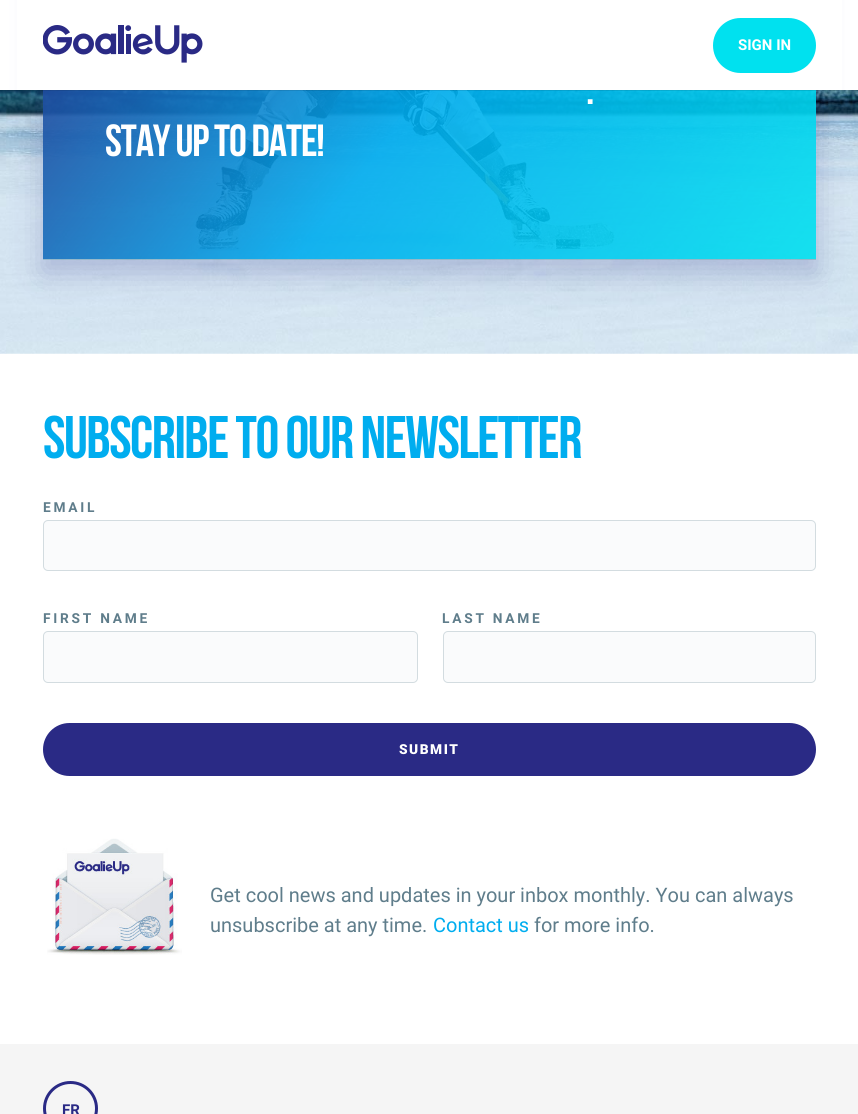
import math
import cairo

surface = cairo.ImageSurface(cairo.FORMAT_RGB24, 858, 1114)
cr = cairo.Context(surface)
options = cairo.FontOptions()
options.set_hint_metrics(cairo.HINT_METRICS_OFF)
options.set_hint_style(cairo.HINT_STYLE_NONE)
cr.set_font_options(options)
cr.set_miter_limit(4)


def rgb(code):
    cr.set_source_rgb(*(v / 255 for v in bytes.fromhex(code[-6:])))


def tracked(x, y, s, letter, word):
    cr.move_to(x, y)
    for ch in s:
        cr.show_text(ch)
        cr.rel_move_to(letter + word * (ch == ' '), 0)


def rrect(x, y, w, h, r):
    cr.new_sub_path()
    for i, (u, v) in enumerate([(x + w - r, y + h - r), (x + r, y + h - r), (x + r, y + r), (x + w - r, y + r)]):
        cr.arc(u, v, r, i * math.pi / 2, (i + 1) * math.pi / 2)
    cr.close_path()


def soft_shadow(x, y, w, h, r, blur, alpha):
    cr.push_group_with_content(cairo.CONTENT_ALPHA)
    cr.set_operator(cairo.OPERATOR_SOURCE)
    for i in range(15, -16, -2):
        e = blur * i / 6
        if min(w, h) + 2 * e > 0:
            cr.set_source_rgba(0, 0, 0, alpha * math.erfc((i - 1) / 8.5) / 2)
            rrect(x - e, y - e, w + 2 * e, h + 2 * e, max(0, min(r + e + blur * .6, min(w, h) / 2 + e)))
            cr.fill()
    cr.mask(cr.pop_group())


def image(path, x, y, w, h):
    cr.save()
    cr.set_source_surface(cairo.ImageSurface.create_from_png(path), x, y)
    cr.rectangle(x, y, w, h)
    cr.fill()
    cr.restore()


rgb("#ffffff")
cr.paint()
image("img/2.png", 0, 90, 858, 264)
cr.save()
cr.set_fill_rule(cairo.FILL_RULE_EVEN_ODD)
cr.new_path()
cr.move_to(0, 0)
cr.line_to(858, 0)
cr.line_to(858, 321)
cr.line_to(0, 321)
cr.close_path()
cr.move_to(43, -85)
cr.line_to(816, -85)
cr.line_to(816, 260)
cr.line_to(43, 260)
cr.close_path()
cr.clip()
rgb("#2a2a85")
soft_shadow(43, -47, 773, 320, 0, 15.5, 0.25)
cr.restore()
cr.rectangle(-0.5, -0.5, 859, 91)
cr.set_source_rgba(0, 0, 0, 0.1)
cr.set_line_width(1)
cr.stroke()
rgb("#ffffff")
cr.rectangle(17, 0, 825, 90)
cr.fill()
image("img/1.png", 43, 25, 160, 38)
rgb("#00e1ef")
rrect(713, 18, 103, 55, 27.5)
cr.fill()
cr.set_source_rgba(0, 0.318, 0.439, 0.3)
cr.rectangle(43, 259, 773, 1)
cr.fill()
rgb("#fafbfc")
rrect(43.5, 520.5, 772, 50, 4.5)
cr.fill_preserve()
rgb("#d3dce0")
cr.stroke()
rgb("#fafbfc")
rrect(43.5, 631.5, 374, 51, 4.5)
cr.fill_preserve()
rgb("#d3dce0")
cr.stroke()
rgb("#fafbfc")
rrect(443.5, 631.5, 372, 51, 4.5)
cr.fill_preserve()
rgb("#d3dce0")
cr.stroke()
rgb("#2a2a85")
rrect(43, 723, 773, 53, 26.5)
cr.fill()
image("img/3.png", 47, 838, 135, 117)
rgb("#f5f5f5")
cr.rectangle(0, 1044, 858, 70)
cr.fill()
cr.arc(70.5, 1108.5, 26, 0, 2 * math.pi)
rgb("#2a2a85")
cr.set_line_width(3)
cr.stroke()
cr.select_font_face("Roboto", cairo.FONT_SLANT_NORMAL, cairo.FONT_WEIGHT_BOLD)
cr.set_font_size(15)
rgb("#ffffff")
cr.move_to(738, 50)
cr.show_text("SIGN IN")
cr.select_font_face("Bebas Neue", cairo.FONT_SLANT_NORMAL, cairo.FONT_WEIGHT_BOLD)
cr.set_font_size(45)
tracked(586, 104, ".", -1.1, 0)
tracked(105, 156, "Stay up to date!", -1.1, 0)
cr.set_font_size(60)
rgb("#00adef")
tracked(43, 458, "Subscribe to our newsletter", -1.5, 0)
cr.select_font_face("Roboto", cairo.FONT_SLANT_NORMAL, cairo.FONT_WEIGHT_BOLD)
cr.set_font_size(13.75)
rgb("#5f7d8b")
for x, y, s in [
    (43, 512, "EMAIL"),
    (43, 623, "FIRST NAME"),
    (442, 623, "LAST NAME"),
]:
    tracked(x, y, s, 2.75, 0)
cr.select_font_face("Roboto Black")
rgb("#ffffff")
tracked(399, 754, "SUBMIT", 1.5, 0)
cr.select_font_face("Roboto")
cr.set_font_size(20)
rgb("#5f7d8b")
cr.move_to(210, 902)
cr.show_text("Get cool news and updates in your inbox monthly. You can always")
cr.move_to(210, 932)
cr.show_text("unsubscribe at any time.")
rgb("#00adef")
cr.move_to(433, 932)
cr.show_text("Contact us")
rgb("#5f7d8b")
cr.move_to(534, 932)
cr.show_text("for more info.")
cr.select_font_face("Roboto", cairo.FONT_SLANT_NORMAL, cairo.FONT_WEIGHT_BOLD)
cr.set_font_size(15)
rgb("#2a2a85")
cr.move_to(62, 1115)
cr.show_text("FR")
surface.write_to_png("page.png")
